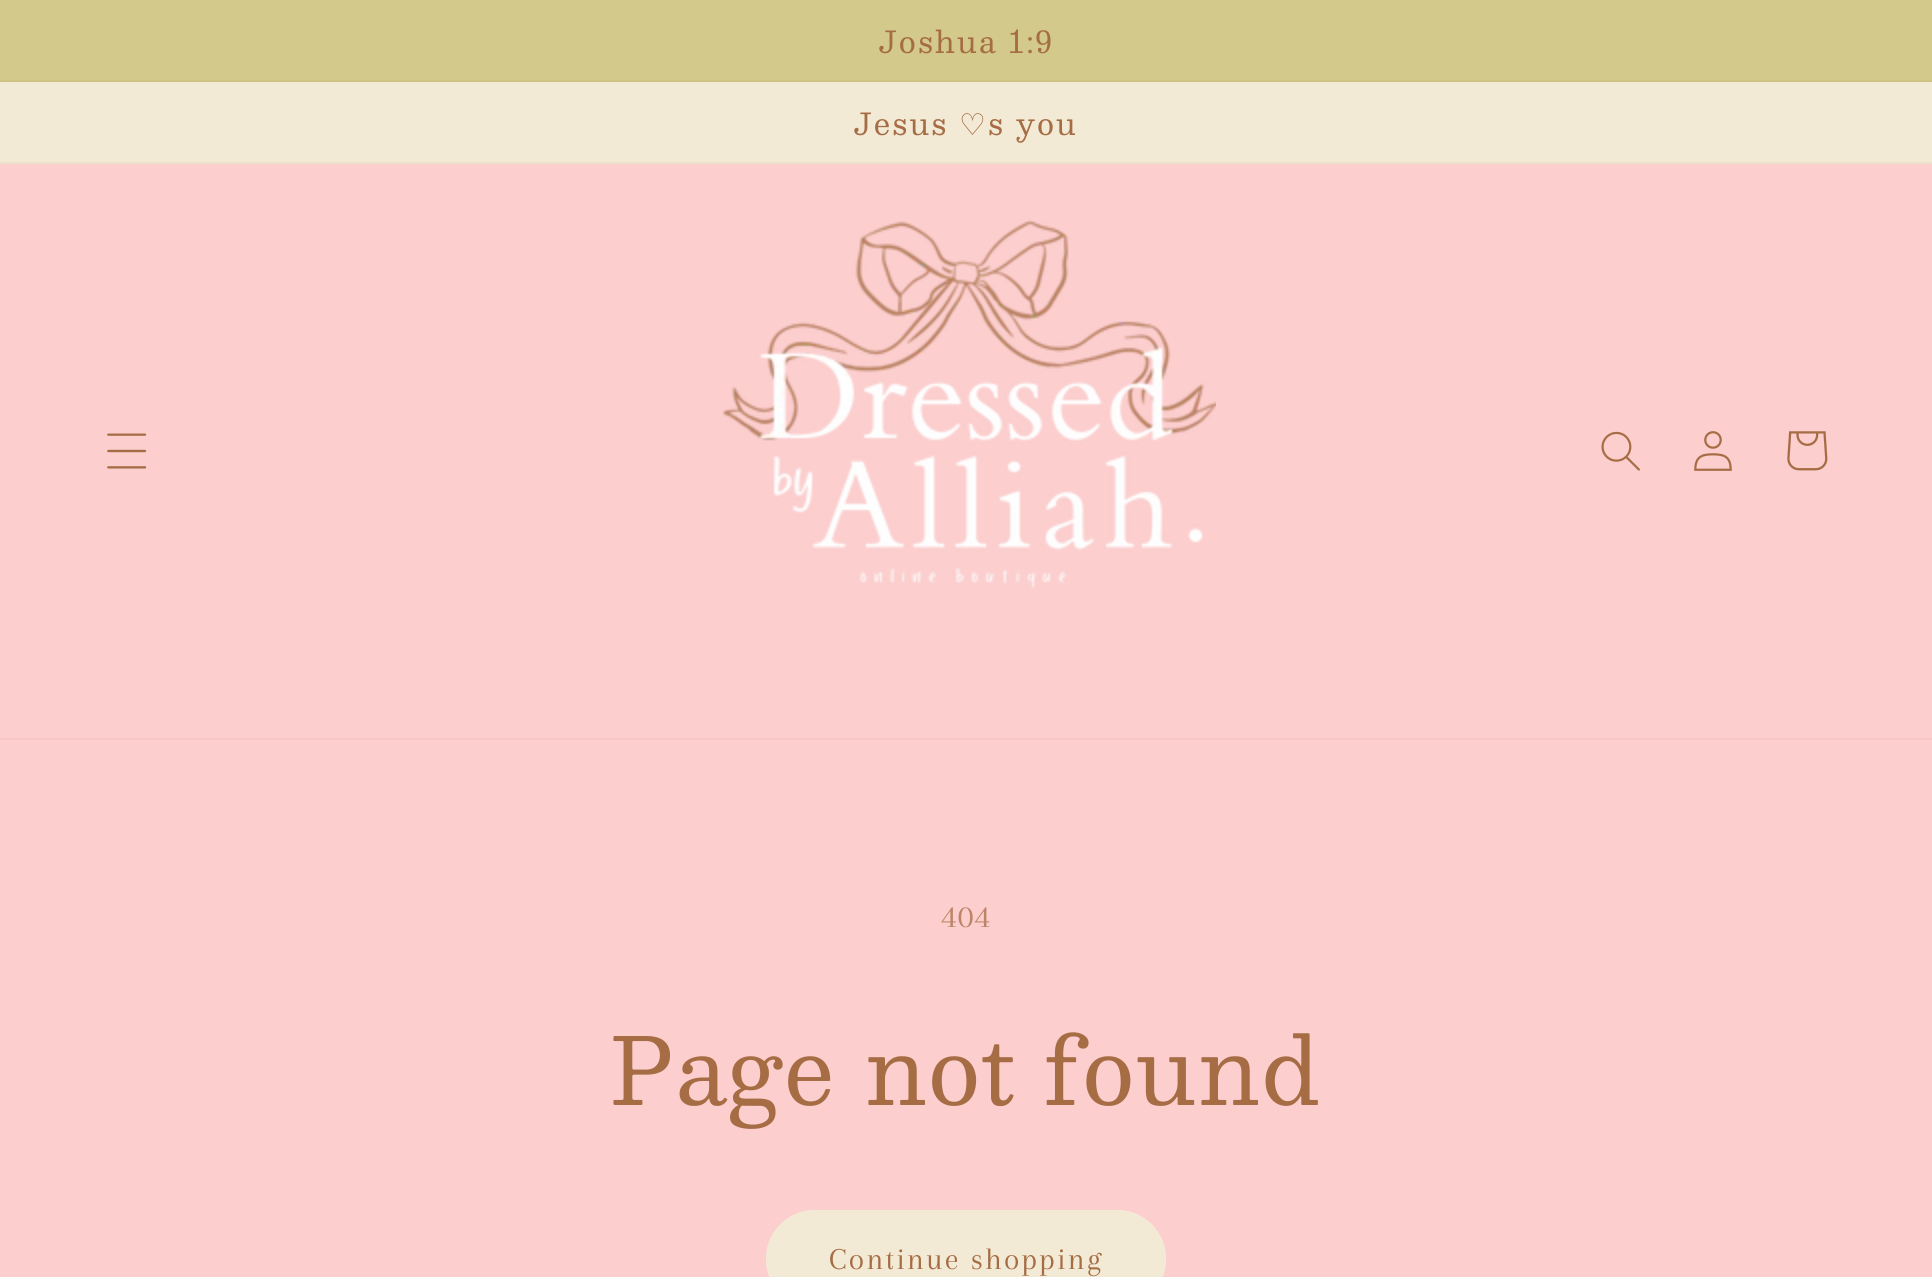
import math
import cairo

surface = cairo.ImageSurface(cairo.FORMAT_RGB24, 1932, 1277)
cr = cairo.Context(surface)
options = cairo.FontOptions()
options.set_hint_metrics(cairo.HINT_METRICS_OFF)
options.set_hint_style(cairo.HINT_STYLE_NONE)
cr.set_font_options(options)
cr.set_miter_limit(4)


def rgb(code):
    cr.set_source_rgb(*(v / 255 for v in bytes.fromhex(code[-6:])))


def tracked(x, y, s, letter, word):
    cr.move_to(x, y)
    for ch in s:
        cr.show_text(ch)
        cr.rel_move_to(letter + word * (ch == ' '), 0)


def rrect(x, y, w, h, r):
    cr.new_sub_path()
    for i, (u, v) in enumerate([(x + w - r, y + h - r), (x + r, y + h - r), (x + r, y + r), (x + w - r, y + r)]):
        cr.arc(u, v, r, i * math.pi / 2, (i + 1) * math.pi / 2)
    cr.close_path()


def image(path, x, y, w, h):
    cr.save()
    cr.set_source_surface(cairo.ImageSurface.create_from_png(path), x, y)
    cr.rectangle(x, y, w, h)
    cr.fill()
    cr.restore()


rgb("#fccece")
cr.paint()
for x, y, w, h, color in [
    (0, 0, 1932, 80, "#d2c98a"),
    (0, 80, 1932, 2, "#cec284"),
    (0, 82, 1932, 80, "#f3ead6"),
    (0, 162, 1932, 2, "#ede0ca"),
    (0, 738, 1932, 2, "#f5c6c3"),
]:
    rgb(color)
    cr.rectangle(x, y, w, h)
    cr.fill()
image("img/1.png", 107, 433, 40, 36)
image("img/2.png", 722, 219, 494, 369)
image("img/3.png", 1601, 431, 39, 40)
image("img/4.png", 1694, 431, 38, 40)
image("img/5.png", 1787, 431, 41, 40)
rgb("#f3ead6")
rrect(766, 1210, 400, 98, 49)
cr.fill()
rrect(767, 1211, 398, 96, 48)
cr.stroke()
cr.select_font_face("Besley")
cr.set_font_size(30)
rgb("#a66d45")
tracked(879, 53, "Joshua 1:9", 2.1, 0)
tracked(854, 135, "Jesus", 2.1, 0)
cr.select_font_face("DejaVu Sans")
tracked(959, 135, "♡", 2.1, 0)
cr.select_font_face("Besley")
tracked(988, 135, "s you", 2.1, 0)
cr.select_font_face("Arapey")
cr.set_font_size(34)
rgb("#bc8567")
tracked(941, 927, "404", 1, 0)
cr.select_font_face("Besley")
cr.set_font_size(92)
rgb("#a66d45")
tracked(610, 1105, "Page not found", 1.4, 0)
cr.select_font_face("Arapey")
cr.set_font_size(31.5)
tracked(829, 1269, "Continue shopping", 2.1, 0)
surface.write_to_png("page.png")
